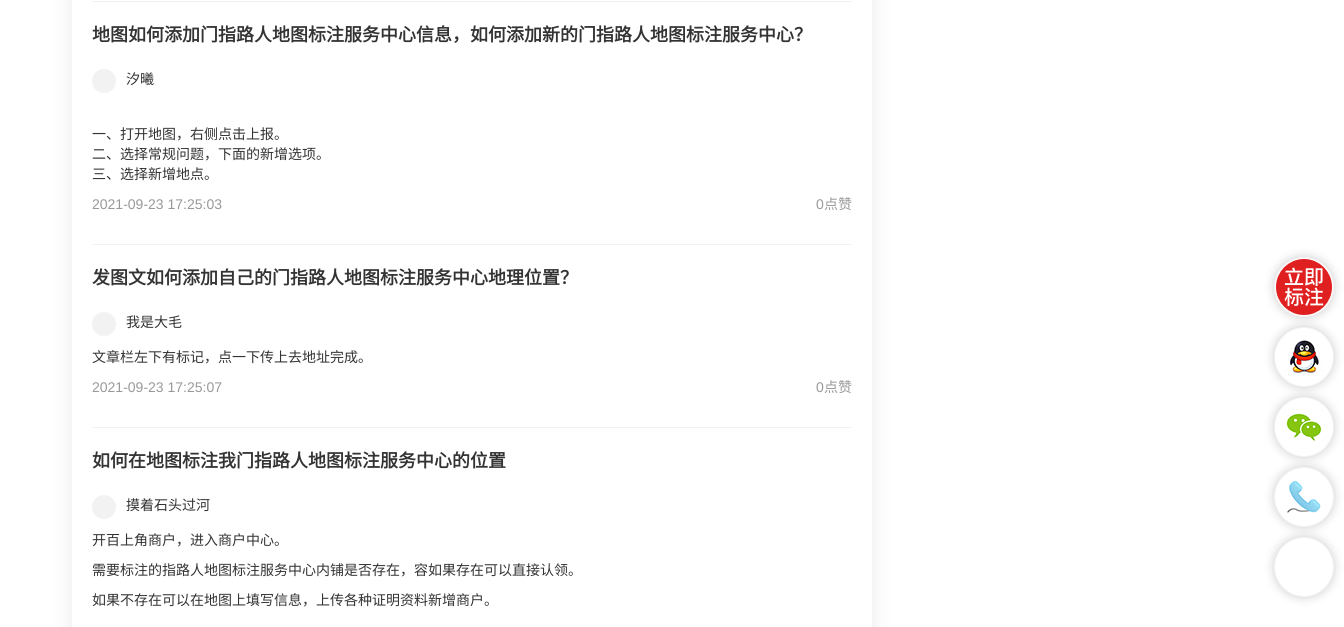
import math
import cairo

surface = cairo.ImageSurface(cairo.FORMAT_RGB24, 1344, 627)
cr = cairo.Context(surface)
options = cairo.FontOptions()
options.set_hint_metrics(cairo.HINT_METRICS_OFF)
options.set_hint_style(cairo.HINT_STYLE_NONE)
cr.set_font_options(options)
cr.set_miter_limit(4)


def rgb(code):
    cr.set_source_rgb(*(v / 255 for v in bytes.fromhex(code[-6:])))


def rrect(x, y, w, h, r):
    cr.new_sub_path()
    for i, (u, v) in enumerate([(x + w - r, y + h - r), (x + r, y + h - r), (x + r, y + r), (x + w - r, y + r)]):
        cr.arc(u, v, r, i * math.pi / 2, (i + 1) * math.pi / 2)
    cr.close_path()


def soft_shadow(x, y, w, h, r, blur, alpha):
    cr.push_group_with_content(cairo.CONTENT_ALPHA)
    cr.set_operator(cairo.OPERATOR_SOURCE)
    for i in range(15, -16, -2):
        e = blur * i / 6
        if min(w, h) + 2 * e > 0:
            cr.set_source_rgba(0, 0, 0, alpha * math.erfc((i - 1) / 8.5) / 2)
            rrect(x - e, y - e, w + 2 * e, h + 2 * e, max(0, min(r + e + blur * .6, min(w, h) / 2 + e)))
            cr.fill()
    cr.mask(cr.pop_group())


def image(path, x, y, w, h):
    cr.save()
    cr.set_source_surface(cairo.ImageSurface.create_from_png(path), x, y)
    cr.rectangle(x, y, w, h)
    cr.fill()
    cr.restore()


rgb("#ffffff")
cr.paint()
cr.save()
cr.set_fill_rule(cairo.FILL_RULE_EVEN_ODD)
cr.new_path()
cr.move_to(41, 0)
cr.line_to(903, 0)
cr.line_to(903, 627)
cr.line_to(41, 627)
cr.close_path()
cr.move_to(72, -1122)
cr.line_to(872, -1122)
cr.line_to(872, 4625)
cr.line_to(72, 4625)
cr.close_path()
cr.clip()
rgb("#eaeaea")
soft_shadow(72, -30, 800, 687, 0, 10, 1)
cr.restore()
rgb("#f2f2f2")
cr.rectangle(92, 1, 760, 1)
cr.fill()
cr.rectangle(92, 244, 760, 1)
cr.fill()
image("img/1.png", 92, 69, 24, 24)
cr.rectangle(92, 427, 760, 1)
cr.fill()
image("img/1.png", 92, 312, 24, 24)
image("img/2.png", 92, 495, 24, 24)
rgb("#000000")
soft_shadow(1274, 257, 60, 60, 30, 5, 0.2)
rgb("#ffffff")
cr.arc(1304, 287, 29.5, 0, 2 * math.pi)
cr.fill_preserve()
rgb("#f2f2f2")
cr.set_line_width(1)
cr.stroke()
image("img/3.png", 1276, 259, 56, 56)
rgb("#000000")
soft_shadow(1274, 327, 60, 60, 30, 5, 0.2)
rgb("#ffffff")
cr.arc(1304, 357, 29.5, 0, 2 * math.pi)
cr.fill_preserve()
rgb("#f2f2f2")
cr.stroke()
image("img/4.png", 1290, 340, 32, 33)
rgb("#000000")
soft_shadow(1274, 397, 60, 60, 30, 5, 0.2)
rgb("#ffffff")
cr.arc(1304, 427, 29.5, 0, 2 * math.pi)
cr.fill_preserve()
rgb("#f2f2f2")
cr.stroke()
image("img/5.png", 1286, 409, 36, 32)
rgb("#000000")
soft_shadow(1274, 467, 60, 60, 30, 5, 0.2)
rgb("#ffffff")
cr.arc(1304, 497, 29.5, 0, 2 * math.pi)
cr.fill_preserve()
rgb("#f2f2f2")
cr.stroke()
image("img/6.png", 1287, 480, 34, 33)
rgb("#000000")
soft_shadow(1274, 537, 60, 60, 30, 5, 0.2)
rgb("#ffffff")
cr.arc(1304, 567, 29.5, 0, 2 * math.pi)
cr.fill_preserve()
rgb("#f2f2f2")
cr.stroke()
cr.select_font_face("Noto Sans CJK SC", cairo.FONT_SLANT_NORMAL, cairo.FONT_WEIGHT_BOLD)
cr.set_font_size(18)
rgb("#333333")
cr.move_to(92, 41)
cr.show_text("地图如何添加门指路人地图标注服务中心信息，如何添加新的门指路人地图标注服务中心？")
cr.select_font_face("Noto Sans CJK SC")
cr.set_font_size(14)
for x, y, s in [
    (126, 84, "汐曦"),
    (92, 139, "一、打开地图，右侧点击上报。"),
    (92, 159, "二、选择常规问题，下面的新增选项。"),
    (92, 179, "三、选择新增地点。"),
]:
    cr.move_to(x, y)
    cr.show_text(s)
cr.select_font_face("Liberation Sans")
rgb("#999999")
cr.move_to(92, 209)
cr.show_text("2021-09-23 17:25:03")
cr.move_to(816, 209)
cr.show_text("0")
cr.select_font_face("Noto Sans CJK SC")
cr.move_to(824, 209)
cr.show_text("点赞")
cr.select_font_face("Noto Sans CJK SC", cairo.FONT_SLANT_NORMAL, cairo.FONT_WEIGHT_BOLD)
cr.set_font_size(18)
rgb("#333333")
cr.move_to(92, 284)
cr.show_text("发图文如何添加自己的门指路人地图标注服务中心地理位置？")
cr.select_font_face("Noto Sans CJK SC")
cr.set_font_size(14)
cr.move_to(126, 327)
cr.show_text("我是大毛")
cr.move_to(92, 362)
cr.show_text("文章栏左下有标记，点一下传上去地址完成。")
cr.select_font_face("Liberation Sans")
rgb("#999999")
cr.move_to(92, 392)
cr.show_text("2021-09-23 17:25:07")
cr.move_to(816, 392)
cr.show_text("0")
cr.select_font_face("Noto Sans CJK SC")
cr.move_to(824, 392)
cr.show_text("点赞")
cr.select_font_face("Noto Sans CJK SC", cairo.FONT_SLANT_NORMAL, cairo.FONT_WEIGHT_BOLD)
cr.set_font_size(18)
rgb("#333333")
cr.move_to(92, 467)
cr.show_text("如何在地图标注我门指路人地图标注服务中心的位置")
cr.select_font_face("Noto Sans CJK SC")
cr.set_font_size(14)
for x, y, s in [
    (126, 510, "摸着石头过河"),
    (92, 545, "开百上角商户，进入商户中心。"),
    (92, 575, "需要标注的指路人地图标注服务中心内铺是否存在，容如果存在可以直接认领。"),
    (92, 605, "如果不存在可以在地图上填写信息，上传各种证明资料新增商户。"),
]:
    cr.move_to(x, y)
    cr.show_text(s)
surface.write_to_png("page.png")
